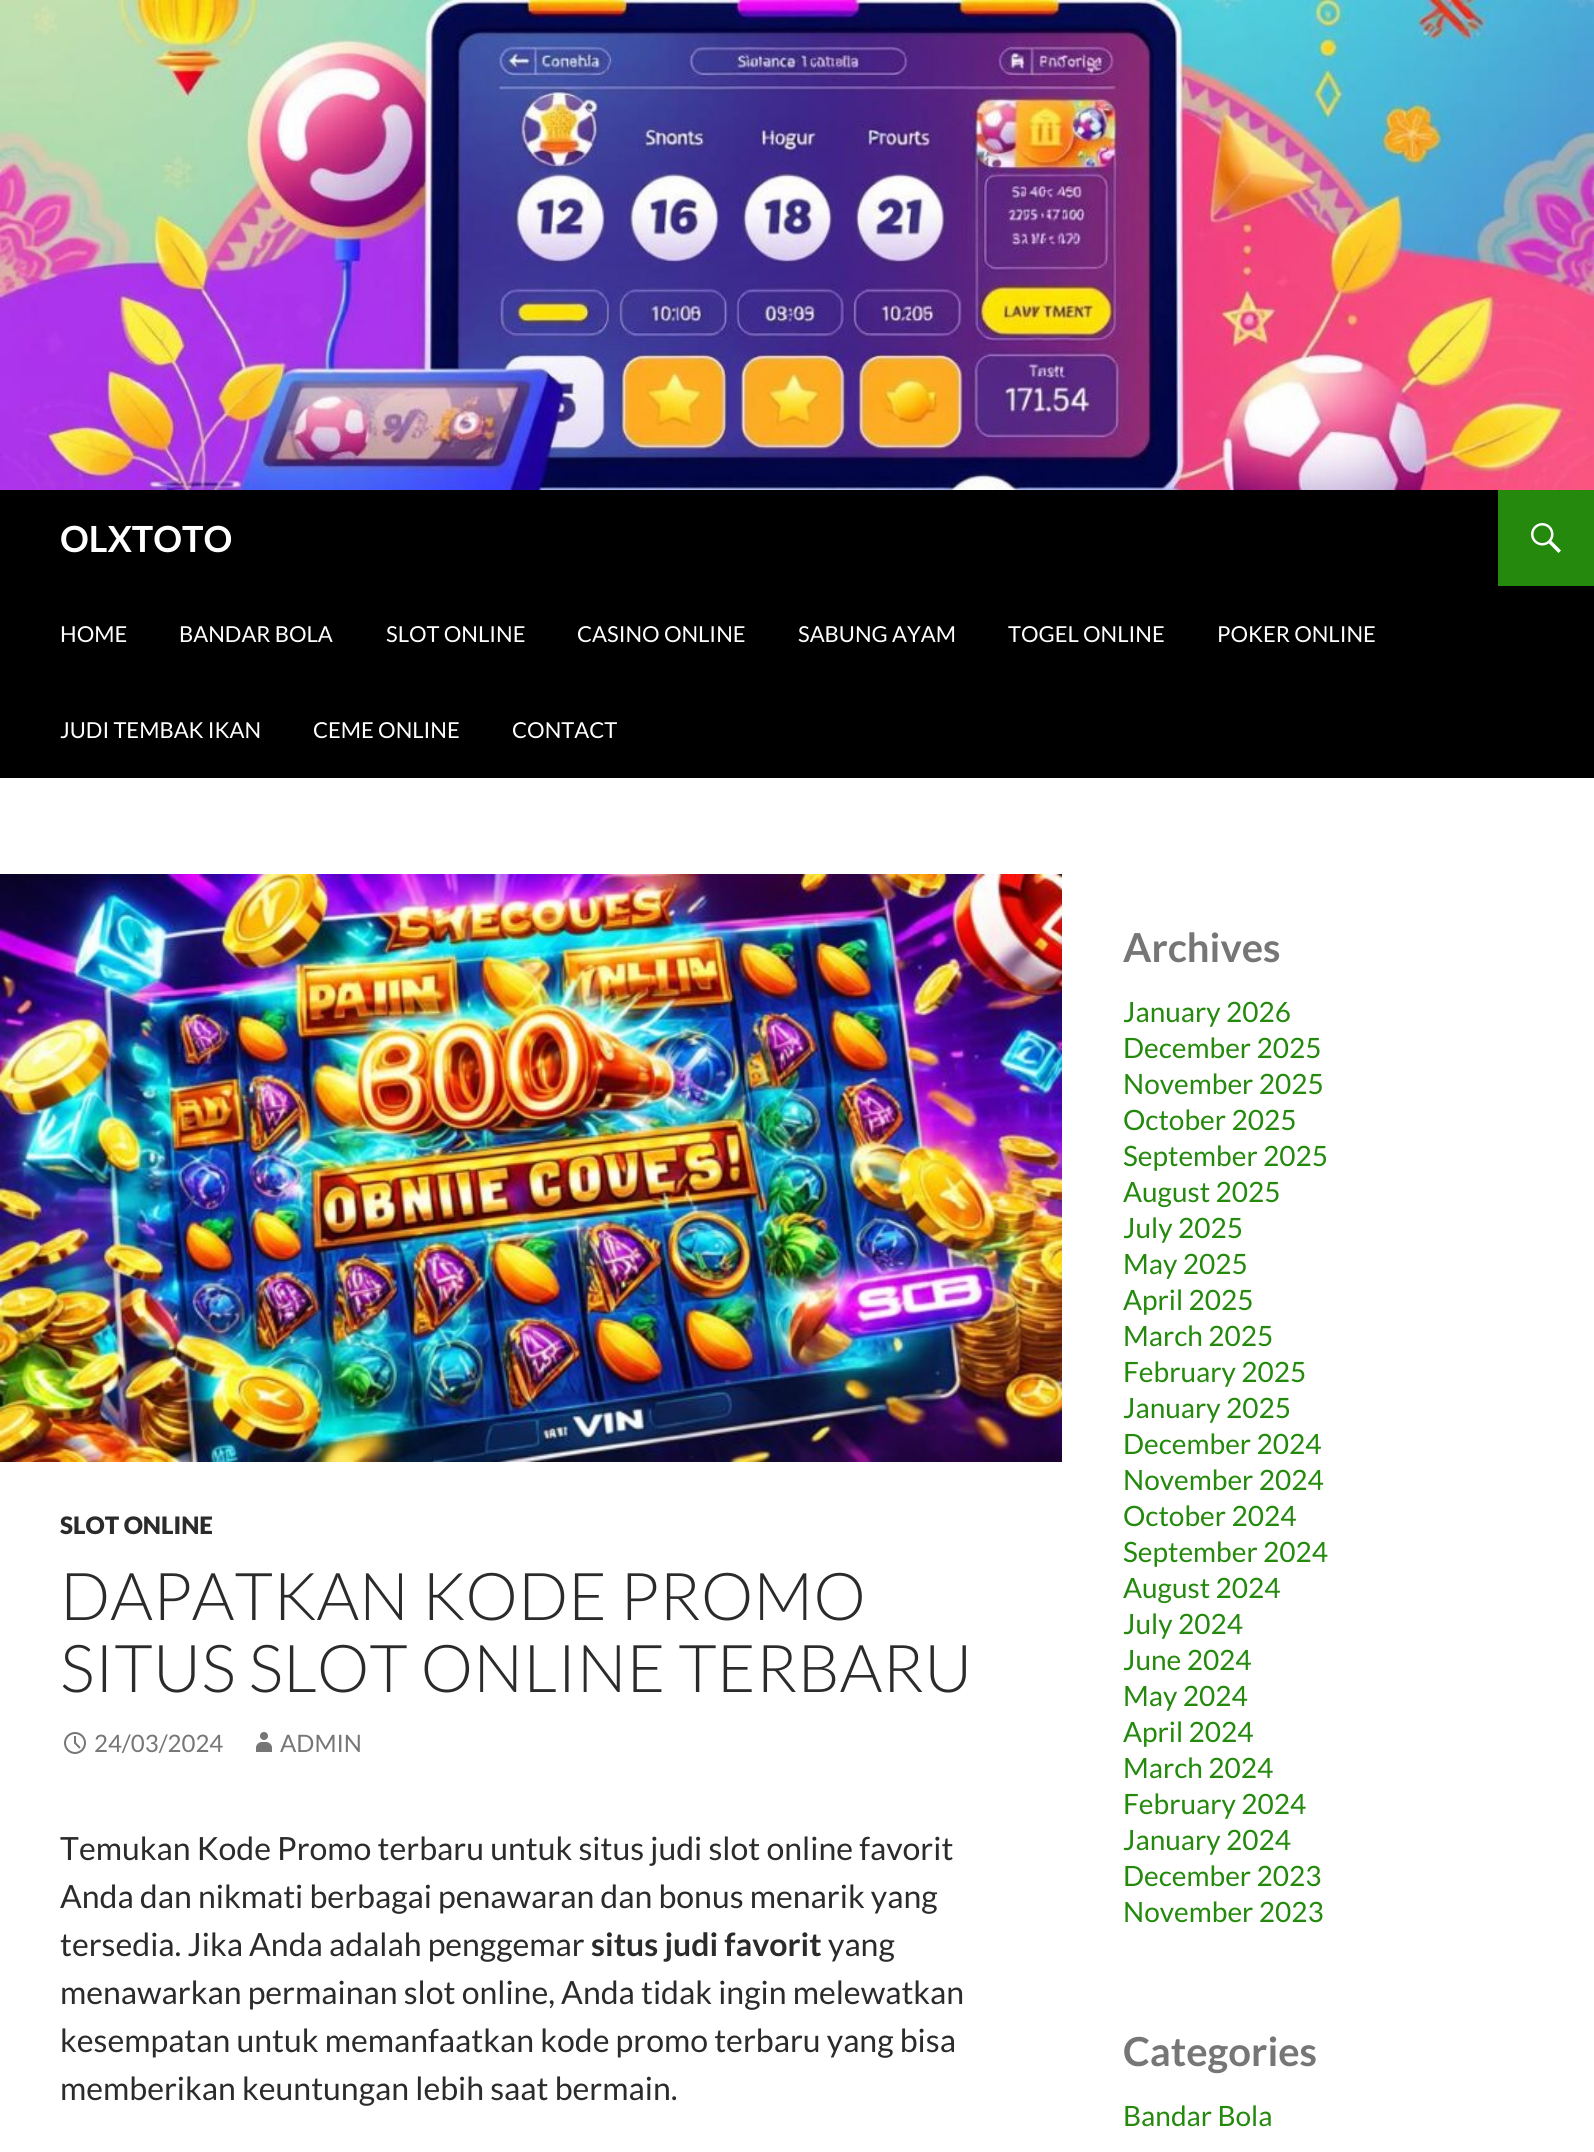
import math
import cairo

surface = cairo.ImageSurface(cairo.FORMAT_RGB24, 1594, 2152)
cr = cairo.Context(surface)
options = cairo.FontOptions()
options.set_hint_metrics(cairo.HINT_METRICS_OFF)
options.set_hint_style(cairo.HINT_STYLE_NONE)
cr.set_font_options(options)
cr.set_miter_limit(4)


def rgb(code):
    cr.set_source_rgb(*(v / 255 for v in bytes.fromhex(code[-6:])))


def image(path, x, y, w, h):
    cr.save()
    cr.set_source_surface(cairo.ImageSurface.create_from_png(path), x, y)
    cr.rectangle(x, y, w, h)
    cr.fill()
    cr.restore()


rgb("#ffffff")
cr.paint()
image("img/1.png", 0, 0, 1594, 490)
rgb("#000000")
cr.rectangle(0, 490, 1594, 288)
cr.fill()
rgb("#24890d")
cr.rectangle(1498, 490, 96, 96)
cr.fill()
image("img/2.png", 1531, 523, 30, 30)
image("img/3.png", 0, 874, 1062, 588)
image("img/4.png", 64, 1732, 22, 22)
image("img/5.png", 256, 1732, 16, 20)
cr.select_font_face("Lato", cairo.FONT_SLANT_NORMAL, cairo.FONT_WEIGHT_BOLD)
cr.set_font_size(36)
rgb("#ffffff")
cr.move_to(60, 552)
cr.show_text("OLXTOTO")
cr.select_font_face("Lato")
cr.set_font_size(22)
for x, y, s in [
    (60, 642, "HOME"),
    (179, 642, "BANDAR BOLA"),
    (386, 642, "SLOT ONLINE"),
    (577, 642, "CASINO ONLINE"),
    (798, 642, "SABUNG AYAM"),
    (1008, 642, "TOGEL ONLINE"),
    (1217, 642, "POKER ONLINE"),
    (60, 738, "JUDI TEMBAK IKAN"),
    (313, 738, "CEME ONLINE"),
    (512, 738, "CONTACT"),
]:
    cr.move_to(x, y)
    cr.show_text(s)
cr.select_font_face("Lato Black")
cr.set_font_size(24)
rgb("#2b2b2b")
cr.move_to(60, 1534)
cr.show_text("SLOT ONLINE")
cr.select_font_face("Lato Light")
cr.set_font_size(66)
cr.move_to(60, 1620)
cr.show_text("DAPATKAN KODE PROMO")
cr.move_to(60, 1692)
cr.show_text("SITUS SLOT ONLINE TERBARU")
cr.select_font_face("Lato")
cr.set_font_size(24)
rgb("#767676")
cr.move_to(94, 1752)
cr.show_text("24/03/2024")
cr.move_to(280, 1752)
cr.show_text("ADMIN")
cr.set_font_size(32)
rgb("#2b2b2b")
for x, y, s in [
    (60, 1860, "Temukan Kode Promo terbaru untuk situs judi slot online favorit"),
    (60, 1908, "Anda dan nikmati berbagai penawaran dan bonus menarik yang"),
    (60, 1956, "tersedia. Jika Anda adalah penggemar"),
]:
    cr.move_to(x, y)
    cr.show_text(s)
cr.select_font_face("Lato", cairo.FONT_SLANT_NORMAL, cairo.FONT_WEIGHT_BOLD)
cr.move_to(591, 1956)
cr.show_text("situs judi favorit")
cr.select_font_face("Lato")
for x, y, s in [
    (828, 1956, "yang"),
    (60, 2004, "menawarkan permainan slot online, Anda tidak ingin melewatkan"),
    (60, 2052, "kesempatan untuk memanfaatkan kode promo terbaru yang bisa"),
    (60, 2100, "memberikan keuntungan lebih saat bermain."),
]:
    cr.move_to(x, y)
    cr.show_text(s)
cr.select_font_face("Lato", cairo.FONT_SLANT_NORMAL, cairo.FONT_WEIGHT_BOLD)
cr.set_font_size(40)
rgb("#767676")
cr.move_to(1123, 962)
cr.show_text("Archives")
cr.select_font_face("Lato")
cr.set_font_size(28)
rgb("#24890d")
for x, y, s in [
    (1123, 1022, "January 2026"),
    (1123, 1058, "December 2025"),
    (1123, 1094, "November 2025"),
    (1123, 1130, "October 2025"),
    (1123, 1166, "September 2025"),
    (1123, 1202, "August 2025"),
    (1123, 1238, "July 2025"),
    (1123, 1274, "May 2025"),
    (1123, 1310, "April 2025"),
    (1123, 1346, "March 2025"),
    (1123, 1382, "February 2025"),
    (1123, 1418, "January 2025"),
    (1123, 1454, "December 2024"),
    (1123, 1490, "November 2024"),
    (1123, 1526, "October 2024"),
    (1123, 1562, "September 2024"),
    (1123, 1598, "August 2024"),
    (1123, 1634, "July 2024"),
    (1123, 1670, "June 2024"),
    (1123, 1706, "May 2024"),
    (1123, 1742, "April 2024"),
    (1123, 1778, "March 2024"),
    (1123, 1814, "February 2024"),
    (1123, 1850, "January 2024"),
    (1123, 1886, "December 2023"),
    (1123, 1922, "November 2023"),
]:
    cr.move_to(x, y)
    cr.show_text(s)
cr.select_font_face("Lato", cairo.FONT_SLANT_NORMAL, cairo.FONT_WEIGHT_BOLD)
cr.set_font_size(40)
rgb("#767676")
cr.move_to(1123, 2066)
cr.show_text("Categories")
cr.select_font_face("Lato")
cr.set_font_size(28)
rgb("#24890d")
cr.move_to(1123, 2126)
cr.show_text("Bandar Bola")
surface.write_to_png("page.png")
